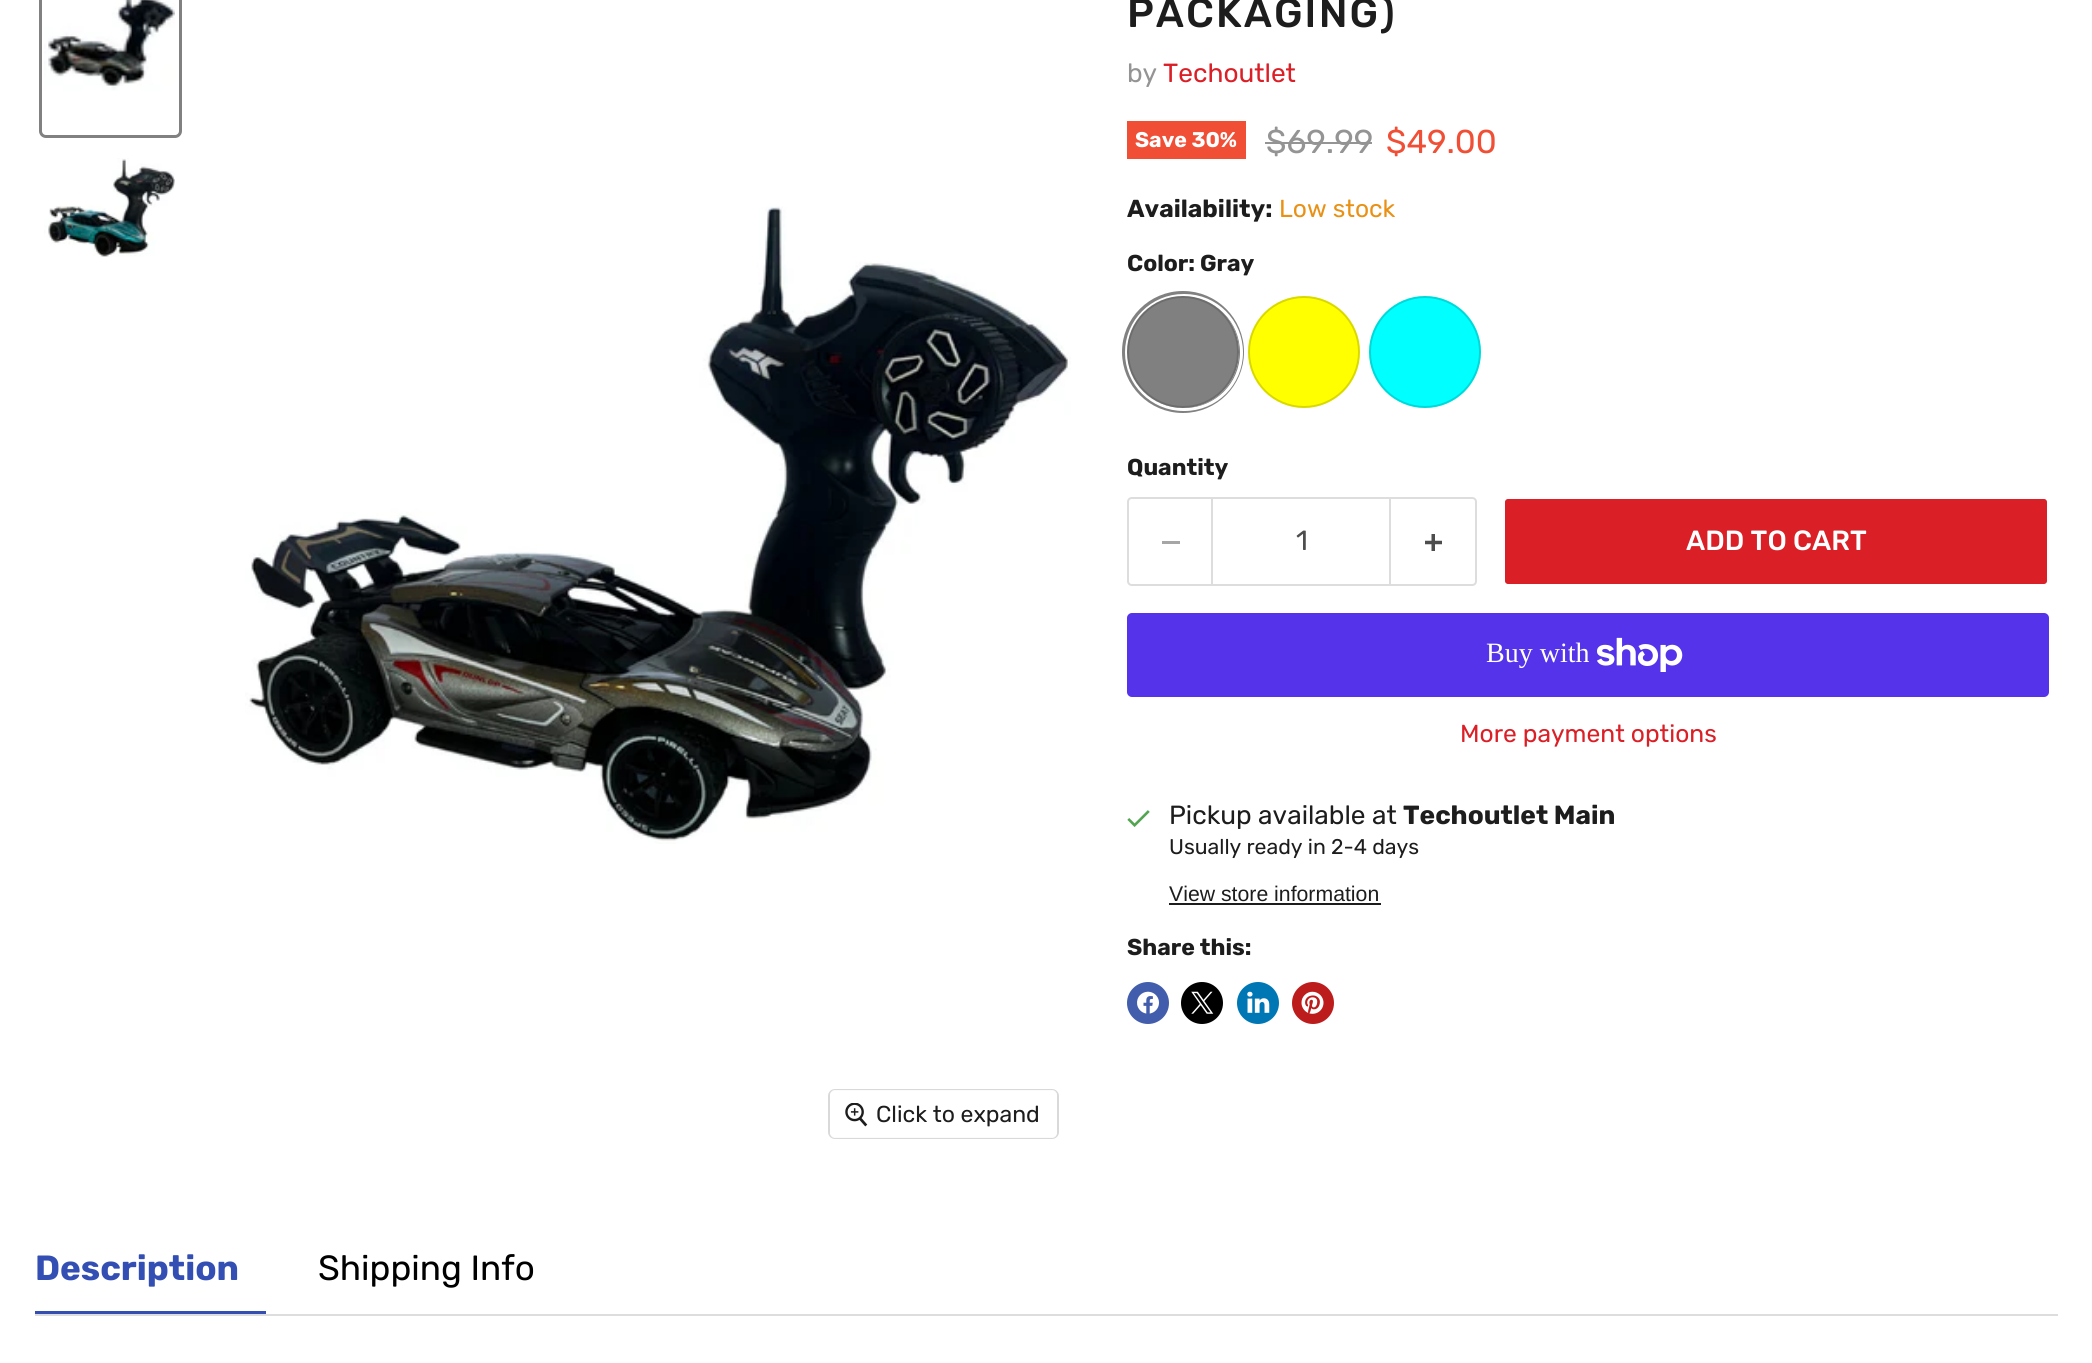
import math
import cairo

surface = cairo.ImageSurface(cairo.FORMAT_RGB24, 2092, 1363)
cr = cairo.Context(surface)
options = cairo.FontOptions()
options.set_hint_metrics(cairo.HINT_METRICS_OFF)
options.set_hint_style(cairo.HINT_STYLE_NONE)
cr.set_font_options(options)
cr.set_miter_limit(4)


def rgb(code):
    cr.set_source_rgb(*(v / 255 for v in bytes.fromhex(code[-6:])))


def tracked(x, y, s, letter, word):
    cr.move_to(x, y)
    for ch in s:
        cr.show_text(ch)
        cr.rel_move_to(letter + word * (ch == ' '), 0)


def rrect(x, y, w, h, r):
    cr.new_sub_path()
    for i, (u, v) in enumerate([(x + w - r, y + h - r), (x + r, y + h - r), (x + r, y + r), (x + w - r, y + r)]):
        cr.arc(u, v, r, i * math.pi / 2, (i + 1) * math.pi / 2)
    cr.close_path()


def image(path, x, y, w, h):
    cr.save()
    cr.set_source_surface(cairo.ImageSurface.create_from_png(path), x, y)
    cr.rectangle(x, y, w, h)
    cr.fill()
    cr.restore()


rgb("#ffffff")
cr.paint()
rgb("#f04f36")
cr.rectangle(1127, 121, 119, 38)
cr.fill()
rgb("#949494")
cr.rectangle(1265, 142, 107, 2)
cr.fill()
cr.arc(1183, 352, 58.5, 0, 2 * math.pi)
rgb("#818181")
cr.set_line_width(5)
cr.stroke()
rrect(1126.5, 295.5, 115, 114, 57)
rgb("#ffffff")
cr.set_line_width(3)
cr.stroke()
rgb("#808080")
cr.arc(1183, 352, 56, 0, 2 * math.pi)
cr.fill()
cr.arc(1183, 352, 55, 0, 2 * math.pi)
cr.set_source_rgba(0, 0, 0, 0.15)
cr.set_line_width(2)
cr.stroke()
rgb("#ffff00")
cr.arc(1304, 352, 56, 0, 2 * math.pi)
cr.fill()
cr.arc(1304, 352, 55, 0, 2 * math.pi)
cr.set_source_rgba(0, 0, 0, 0.15)
cr.stroke()
rgb("#00ffff")
cr.arc(1425, 352, 56, 0, 2 * math.pi)
cr.fill()
cr.arc(1425, 352, 55, 0, 2 * math.pi)
cr.set_source_rgba(0, 0, 0, 0.15)
cr.stroke()
rgb("#dddddd")
cr.set_fill_rule(cairo.FILL_RULE_EVEN_ODD)
cr.new_path()
cr.move_to(1132, 497)
cr.line_to(1211, 497)
cr.line_to(1211, 586)
cr.line_to(1132, 586)
cr.curve_to(1129, 586, 1127, 584, 1127, 581)
cr.line_to(1127, 502)
cr.curve_to(1127, 499, 1129, 497, 1132, 497)
cr.close_path()
cr.move_to(1132, 499)
cr.line_to(1211, 499)
cr.line_to(1211, 584)
cr.line_to(1132, 584)
cr.curve_to(1130, 584, 1129, 583, 1129, 581)
cr.line_to(1129, 502)
cr.curve_to(1129, 500, 1130, 499, 1132, 499)
cr.close_path()
cr.fill()
rgb("#a6a6a6")
cr.rectangle(1162, 541, 18, 3)
cr.fill()
cr.rectangle(1212, 498, 178, 87)
rgb("#dddddd")
cr.stroke()
cr.new_path()
cr.move_to(1391, 497)
cr.line_to(1472, 497)
cr.curve_to(1475, 497, 1477, 499, 1477, 502)
cr.line_to(1477, 581)
cr.curve_to(1477, 584, 1475, 586, 1472, 586)
cr.line_to(1391, 586)
cr.close_path()
cr.move_to(1391, 499)
cr.line_to(1472, 499)
cr.curve_to(1474, 499, 1475, 500, 1475, 502)
cr.line_to(1475, 581)
cr.curve_to(1475, 583, 1474, 584, 1472, 584)
cr.line_to(1391, 584)
cr.close_path()
cr.fill()
image("img/1.png", 1425, 534, 17, 17)
rgb("#db1f26")
rrect(1504, 498, 544, 87, 4)
cr.fill_preserve()
rgb("#ffffff")
cr.stroke()
rgb("#5433eb")
rrect(1127, 613, 922, 84, 5)
cr.fill()
image("img/2.png", 1597, 637, 86, 35)
image("img/3.png", 1127, 810, 23, 17)
rgb("#1d1d1d")
cr.rectangle(1169, 903, 212, 2)
cr.fill()
rgb("#425dab")
cr.arc(1148, 1003, 21, 0, 2 * math.pi)
cr.fill()
image("img/4.png", 1137, 991, 22, 23)
rgb("#000000")
cr.arc(1202, 1003, 21, 0, 2 * math.pi)
cr.fill()
image("img/5.png", 1191, 991, 23, 23)
rgb("#0077b5")
cr.arc(1258, 1003, 21, 0, 2 * math.pi)
cr.fill()
image("img/6.png", 1247, 991, 23, 22)
rgb("#bd1c1c")
cr.arc(1313, 1003, 21, 0, 2 * math.pi)
cr.fill()
image("img/7.png", 1301, 991, 23, 23)
rrect(40.5, -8.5, 140, 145, 5.5)
rgb("#818181")
cr.set_line_width(3)
cr.stroke()
image("img/8.png", 44, 0, 131, 91)
image("img/9.png", 44, 158, 131, 99)
image("img/10.png", 245, 206, 826, 638)
rrect(829, 1090, 229, 48, 6)
rgb("#d9d9d9")
cr.set_line_width(2)
cr.stroke()
cr.set_source_rgba(1, 1, 1, 0.9)
rrect(830, 1090, 227, 48, 5)
cr.fill()
image("img/11.png", 845, 1103, 23, 24)
rgb("#dddddd")
cr.rectangle(35, 1314, 2023, 2)
cr.fill()
rgb("#334fb4")
cr.rectangle(35, 1311, 231, 3)
cr.fill()
cr.select_font_face("Rubik Medium")
cr.set_font_size(40.75)
rgb("#1d1d1d")
tracked(1127, 27, "PACKAGING)", 2, 0)
cr.select_font_face("Rubik")
cr.set_font_size(26.25)
rgb("#949494")
cr.move_to(1127, 82)
cr.show_text("by")
rgb("#db1f26")
cr.move_to(1163, 82)
cr.show_text("Techoutlet")
cr.select_font_face("Rubik", cairo.FONT_SLANT_NORMAL, cairo.FONT_WEIGHT_BOLD)
cr.set_font_size(21.25)
rgb("#ffffff")
cr.move_to(1135, 147)
cr.show_text("Save 30%")
cr.select_font_face("Rubik")
cr.set_font_size(33)
rgb("#949494")
cr.move_to(1266, 153)
cr.show_text("$69.99")
rgb("#f04f36")
cr.move_to(1386, 153)
cr.show_text("$49.00")
cr.select_font_face("Rubik", cairo.FONT_SLANT_NORMAL, cairo.FONT_WEIGHT_BOLD)
cr.set_font_size(24.6)
rgb("#1d1d1d")
cr.move_to(1127, 217)
cr.show_text("Availability:")
cr.select_font_face("Rubik")
rgb("#e99114")
cr.move_to(1279, 217)
cr.show_text("Low stock")
cr.select_font_face("Rubik", cairo.FONT_SLANT_NORMAL, cairo.FONT_WEIGHT_BOLD)
cr.set_font_size(23)
rgb("#1d1d1d")
cr.move_to(1127, 271)
cr.show_text("Color: Gray")
cr.move_to(1127, 475)
cr.show_text("Quantity")
cr.select_font_face("Rubik")
cr.set_font_size(27.75)
rgb("#4d4d4d")
cr.move_to(1296, 550)
cr.show_text("1")
cr.select_font_face("Rubik Medium")
rgb("#ffffff")
cr.move_to(1686, 550)
cr.show_text("ADD TO CART")
cr.select_font_face("Liberation Serif")
cr.set_font_size(28)
cr.move_to(1486, 662)
cr.show_text("Buy with")
cr.select_font_face("Rubik")
cr.set_font_size(24.6)
rgb("#db1f26")
cr.move_to(1460, 742)
cr.show_text("More payment options")
cr.set_font_size(26.25)
rgb("#1d1d1d")
cr.move_to(1169, 824)
cr.show_text("Pickup available at")
cr.select_font_face("Rubik", cairo.FONT_SLANT_NORMAL, cairo.FONT_WEIGHT_BOLD)
cr.move_to(1403, 824)
cr.show_text("Techoutlet Main")
cr.select_font_face("Rubik")
cr.set_font_size(21.25)
cr.move_to(1169, 854)
cr.show_text("Usually ready in 2-4 days")
cr.select_font_face("Liberation Sans")
cr.move_to(1169, 901)
cr.show_text("View store information")
cr.select_font_face("Rubik", cairo.FONT_SLANT_NORMAL, cairo.FONT_WEIGHT_BOLD)
cr.set_font_size(23)
cr.move_to(1127, 955)
cr.show_text("Share this:")
cr.select_font_face("Rubik")
cr.move_to(876, 1122)
cr.show_text("Click to expand")
cr.select_font_face("Rubik", cairo.FONT_SLANT_NORMAL, cairo.FONT_WEIGHT_BOLD)
cr.set_font_size(35)
rgb("#334fb4")
cr.move_to(35, 1280)
cr.show_text("Description")
cr.select_font_face("Rubik")
rgb("#000000")
cr.move_to(318, 1280)
cr.show_text("Shipping Info")
surface.write_to_png("page.png")
